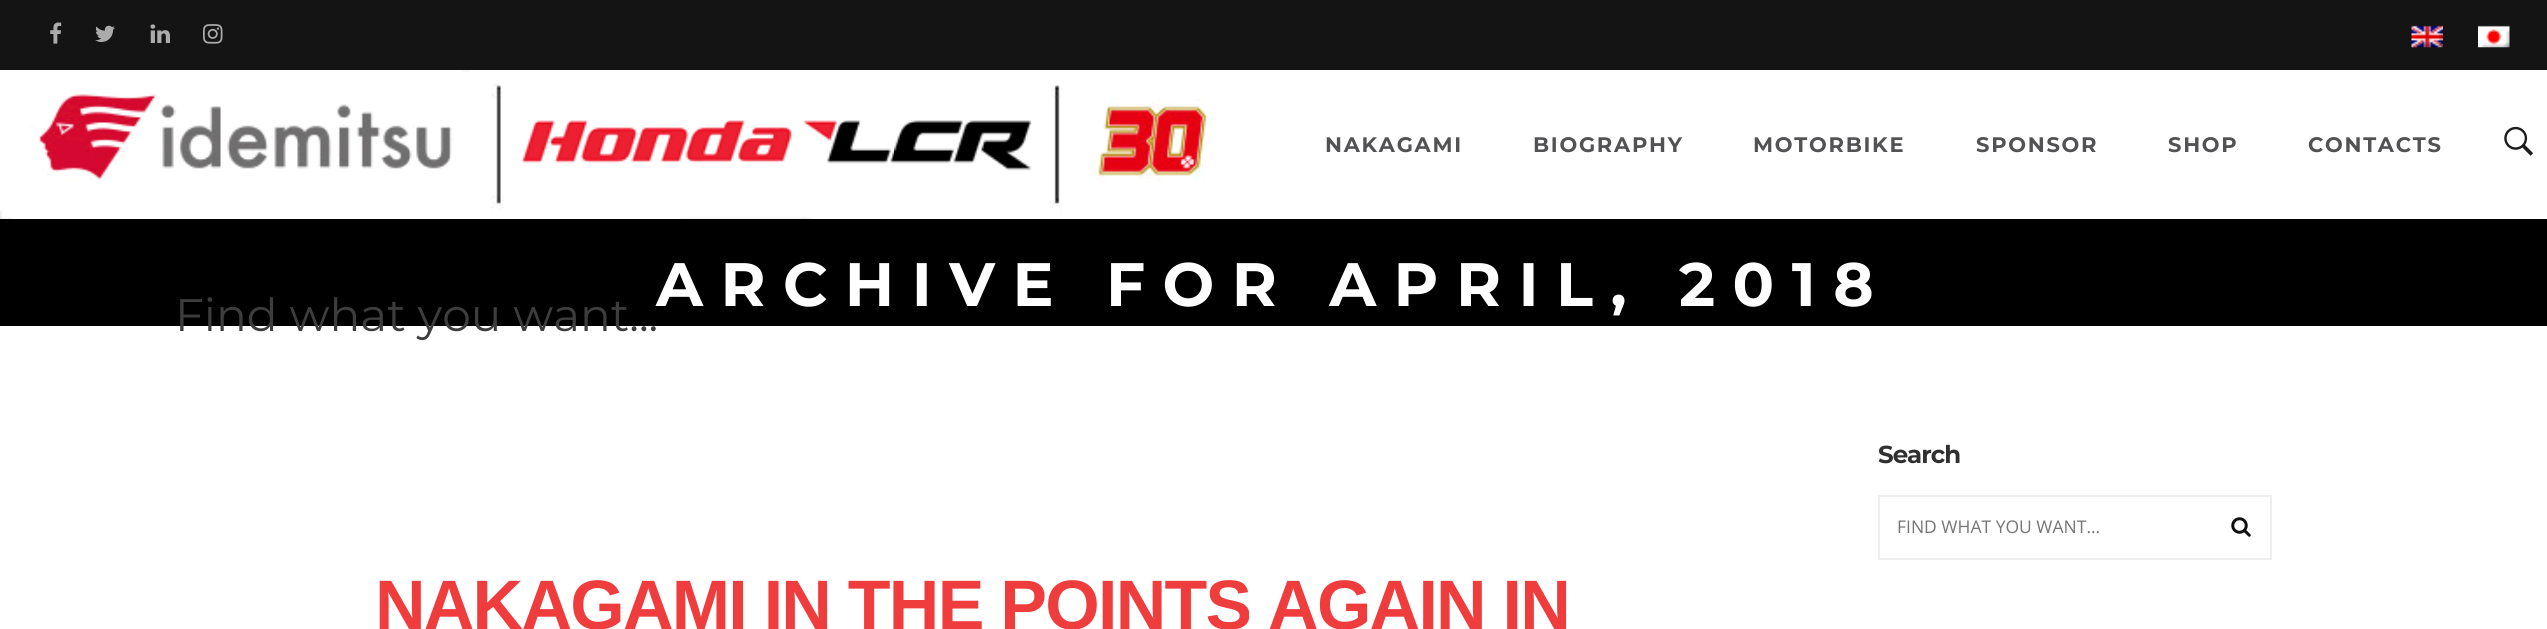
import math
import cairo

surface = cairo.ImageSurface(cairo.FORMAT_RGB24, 2547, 629)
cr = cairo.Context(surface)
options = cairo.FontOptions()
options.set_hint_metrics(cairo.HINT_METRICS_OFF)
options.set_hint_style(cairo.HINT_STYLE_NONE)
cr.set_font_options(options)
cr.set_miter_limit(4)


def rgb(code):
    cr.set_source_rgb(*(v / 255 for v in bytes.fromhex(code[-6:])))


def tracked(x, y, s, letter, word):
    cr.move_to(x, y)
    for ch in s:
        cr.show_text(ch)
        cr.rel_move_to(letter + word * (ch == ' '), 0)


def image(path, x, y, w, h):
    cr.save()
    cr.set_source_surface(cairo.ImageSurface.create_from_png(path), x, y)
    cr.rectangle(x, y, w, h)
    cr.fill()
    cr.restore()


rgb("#ffffff")
cr.paint()
rgb("#141414")
cr.rectangle(0, 0, 2547, 70)
cr.fill()
image("img/1.png", 50, 22, 12, 22)
image("img/2.png", 95, 25, 20, 17)
image("img/3.png", 150, 24, 20, 19)
image("img/4.png", 203, 24, 20, 20)
image("img/5.png", 2411, 25, 32, 23)
image("img/6.png", 2478, 25, 32, 23)
image("img/7.png", 0, 70, 1218, 149)
image("img/8.png", 2504, 126, 29, 30)
rgb("#000000")
cr.rectangle(0, 219, 2547, 107)
cr.fill()
cr.rectangle(1879, 496, 392, 63)
rgb("#efefef")
cr.stroke()
image("img/9.png", 2231, 517, 20, 20)
cr.select_font_face("Montserrat", cairo.FONT_SLANT_NORMAL, cairo.FONT_WEIGHT_BOLD)
cr.set_font_size(21)
rgb("#525254")
for x, y, s in [
    (1325, 152, "NAKAGAMI"),
    (1533, 152, "BIOGRAPHY"),
    (1753, 152, "MOTORBIKE"),
    (1976, 152, "SPONSOR"),
    (2168, 152, "SHOP"),
    (2308, 152, "CONTACTS"),
]:
    tracked(x, y, s, 1.75, 0)
cr.set_font_size(61.25)
rgb("#ffffff")
tracked(656, 306, "ARCHIVE FOR APRIL, 2018", 17.5, 0)
cr.select_font_face("Montserrat")
cr.set_font_size(45.5)
rgb("#3d3d3d")
cr.move_to(175, 331)
cr.show_text("Find what you want...")
cr.select_font_face("Montserrat", cairo.FONT_SLANT_NORMAL, cairo.FONT_WEIGHT_BOLD)
cr.set_font_size(24.5)
rgb("#303030")
tracked(1878, 463, "Search", -1, 0)
cr.select_font_face("Open Sans")
cr.set_font_size(17.5)
rgb("#757575")
cr.move_to(1897, 533)
cr.show_text("FIND WHAT YOU WANT...")
cr.select_font_face("Liberation Sans", cairo.FONT_SLANT_NORMAL, cairo.FONT_WEIGHT_BOLD)
cr.set_font_size(70)
rgb("#ef3c3c")
tracked(375, 629, "NAKAGAMI IN THE POINTS AGAIN IN", -1.75, 0)
surface.write_to_png("page.png")
